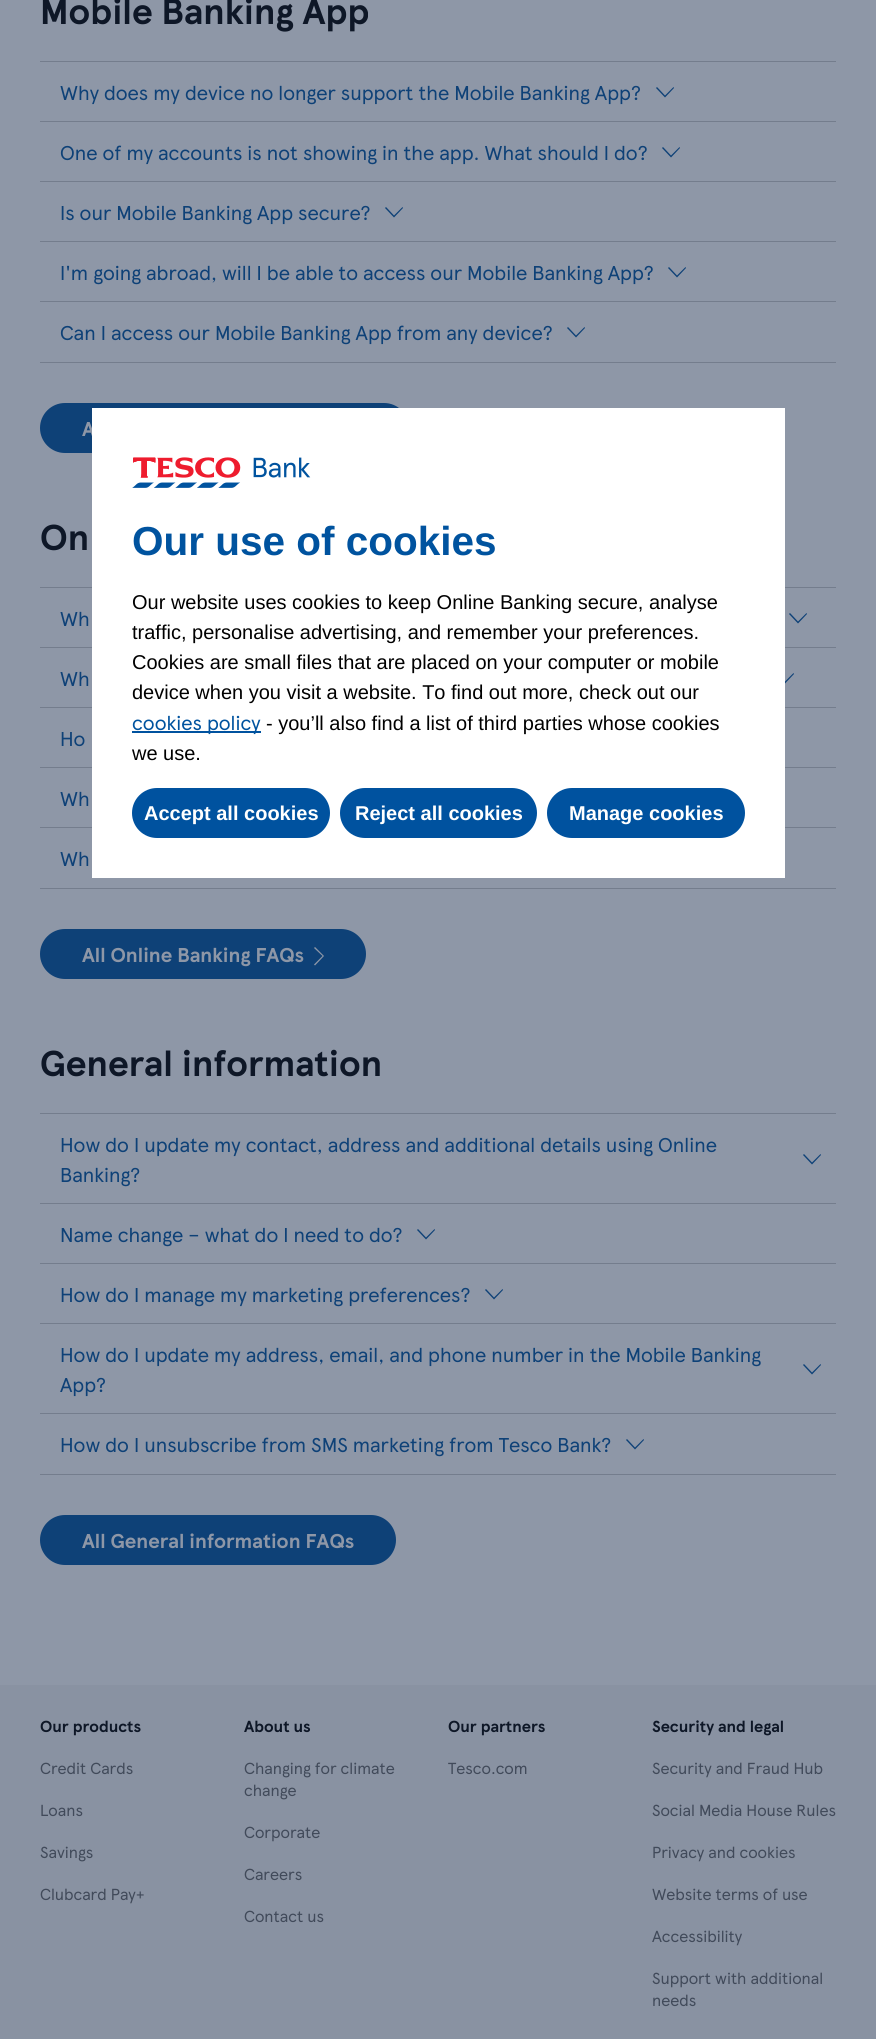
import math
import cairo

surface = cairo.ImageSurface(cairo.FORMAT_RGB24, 876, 2039)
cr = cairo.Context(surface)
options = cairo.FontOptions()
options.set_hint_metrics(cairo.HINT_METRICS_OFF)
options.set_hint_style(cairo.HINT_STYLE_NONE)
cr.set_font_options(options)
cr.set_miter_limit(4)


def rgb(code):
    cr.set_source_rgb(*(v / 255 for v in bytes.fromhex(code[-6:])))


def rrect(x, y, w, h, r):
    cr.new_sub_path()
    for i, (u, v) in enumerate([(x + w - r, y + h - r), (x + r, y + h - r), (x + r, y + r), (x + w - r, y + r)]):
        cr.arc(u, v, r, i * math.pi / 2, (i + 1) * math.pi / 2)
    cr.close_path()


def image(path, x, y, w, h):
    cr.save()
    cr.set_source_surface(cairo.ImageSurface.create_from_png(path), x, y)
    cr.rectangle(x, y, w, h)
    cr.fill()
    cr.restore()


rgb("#8e97a7")
cr.paint()
rgb("#747d8d")
cr.rectangle(40, 61, 796, 1)
cr.fill()
rgb("#0e4177")
cr.new_path()
cr.move_to(665, 97.5)
cr.line_to(656, 88)
cr.line_to(657, 87)
cr.line_to(665, 95.5)
cr.line_to(673.5, 87)
cr.line_to(674, 88)
cr.close_path()
cr.fill()
rgb("#747d8d")
cr.rectangle(40, 121, 796, 1)
cr.fill()
rgb("#0e4177")
cr.new_path()
cr.move_to(671, 157.5)
cr.line_to(662, 148)
cr.line_to(663, 147)
cr.line_to(671, 155.5)
cr.line_to(679.5, 147)
cr.line_to(680, 148)
cr.close_path()
cr.fill()
rgb("#747d8d")
cr.rectangle(40, 181, 796, 1)
cr.fill()
rgb("#0e4177")
cr.new_path()
cr.move_to(394, 217.5)
cr.line_to(385, 208)
cr.line_to(386, 207)
cr.line_to(394, 215.5)
cr.line_to(402.5, 207)
cr.line_to(403, 208)
cr.close_path()
cr.fill()
rgb("#747d8d")
cr.rectangle(40, 241, 796, 1)
cr.fill()
rgb("#0e4177")
cr.new_path()
cr.move_to(677, 277.5)
cr.line_to(668, 268)
cr.line_to(669, 267)
cr.line_to(677, 275.5)
cr.line_to(685.5, 267)
cr.line_to(686, 268)
cr.close_path()
cr.fill()
rgb("#747d8d")
cr.rectangle(40, 301, 796, 1)
cr.fill()
cr.rectangle(40, 362, 796, 1)
cr.fill()
rgb("#0e4177")
cr.new_path()
cr.move_to(576, 337.5)
cr.line_to(567, 328)
cr.line_to(568, 327)
cr.line_to(576, 335.5)
cr.line_to(584.5, 327)
cr.line_to(585, 328)
cr.close_path()
cr.fill()
rrect(41, 404, 367, 48, 24)
cr.fill_preserve()
cr.stroke()
rgb("#747d8d")
cr.rectangle(40, 587, 796, 1)
cr.fill()
rgb("#0e4177")
cr.new_path()
cr.move_to(798, 623.5)
cr.line_to(789, 614)
cr.line_to(790, 613)
cr.line_to(798, 621.5)
cr.line_to(806.5, 613)
cr.line_to(807, 614)
cr.close_path()
cr.fill()
rgb("#747d8d")
cr.rectangle(40, 647, 796, 1)
cr.fill()
rgb("#0e4177")
cr.new_path()
cr.move_to(785, 683.5)
cr.line_to(776, 674)
cr.line_to(777, 673)
cr.line_to(785, 681.5)
cr.line_to(793.5, 673)
cr.line_to(794, 674)
cr.close_path()
cr.fill()
for x, y, w, h, color in [
    (40, 707, 796, 1, "#747d8d"),
    (40, 767, 796, 1, "#747d8d"),
    (40, 827, 796, 1, "#747d8d"),
    (40, 888, 796, 1, "#747d8d"),
]:
    rgb(color)
    cr.rectangle(x, y, w, h)
    cr.fill()
rgb("#0e4177")
rrect(41, 930, 324, 48, 24)
cr.fill_preserve()
cr.stroke()
rgb("#8e97a7")
cr.new_path()
cr.move_to(315, 947)
cr.line_to(324, 956)
cr.line_to(315, 965.5)
cr.line_to(314, 964.5)
cr.line_to(322.5, 956)
cr.line_to(314, 948)
cr.close_path()
cr.fill()
rgb("#747d8d")
cr.rectangle(40, 1113, 796, 1)
cr.fill()
rgb("#0e4177")
cr.new_path()
cr.move_to(812, 1164.5)
cr.line_to(803, 1155)
cr.line_to(804, 1154)
cr.line_to(812, 1162.5)
cr.line_to(820.5, 1154)
cr.line_to(821, 1155)
cr.close_path()
cr.fill()
rgb("#747d8d")
cr.rectangle(40, 1203, 796, 1)
cr.fill()
rgb("#0e4177")
cr.new_path()
cr.move_to(426, 1239.5)
cr.line_to(417, 1230)
cr.line_to(418, 1229)
cr.line_to(426, 1237.5)
cr.line_to(434.5, 1229)
cr.line_to(435, 1230)
cr.close_path()
cr.fill()
rgb("#747d8d")
cr.rectangle(40, 1263, 796, 1)
cr.fill()
rgb("#0e4177")
cr.new_path()
cr.move_to(494, 1299.5)
cr.line_to(485, 1290)
cr.line_to(486, 1289)
cr.line_to(494, 1297.5)
cr.line_to(502.5, 1289)
cr.line_to(503, 1290)
cr.close_path()
cr.fill()
rgb("#747d8d")
cr.rectangle(40, 1323, 796, 1)
cr.fill()
rgb("#0e4177")
cr.new_path()
cr.move_to(812, 1374.5)
cr.line_to(803, 1365)
cr.line_to(804, 1364)
cr.line_to(812, 1372.5)
cr.line_to(820.5, 1364)
cr.line_to(821, 1365)
cr.close_path()
cr.fill()
rgb("#747d8d")
cr.rectangle(40, 1413, 796, 1)
cr.fill()
cr.rectangle(40, 1474, 796, 1)
cr.fill()
rgb("#0e4177")
cr.new_path()
cr.move_to(635, 1449.5)
cr.line_to(626, 1440)
cr.line_to(627, 1439)
cr.line_to(635, 1447.5)
cr.line_to(643.5, 1439)
cr.line_to(644, 1440)
cr.close_path()
cr.fill()
rrect(41, 1516, 354, 48, 24)
cr.fill_preserve()
cr.stroke()
rgb("#8992a2")
cr.rectangle(0, 1685, 876, 354)
cr.fill()
cr.select_font_face("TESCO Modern", cairo.FONT_SLANT_NORMAL, cairo.FONT_WEIGHT_BOLD)
cr.set_font_size(36)
rgb("#0e1727")
cr.move_to(40, 24)
cr.show_text("Mobile Banking App")
cr.select_font_face("TESCO Modern")
cr.set_font_size(20)
rgb("#0e4177")
for x, y, s in [
    (60, 100, "Why does my device no longer support the Mobile Banking App?"),
    (60, 160, "One of my accounts is not showing in the app. What should I do?"),
    (60, 220, "Is our Mobile Banking App secure?"),
    (60, 280, "I'm going abroad, will I be able to access our Mobile Banking App?"),
    (60, 340, "Can I access our Mobile Banking App from any device?"),
]:
    cr.move_to(x, y)
    cr.show_text(s)
cr.select_font_face("TESCO Modern", cairo.FONT_SLANT_NORMAL, cairo.FONT_WEIGHT_BOLD)
rgb("#8e97a7")
cr.move_to(82, 436)
cr.show_text("A")
cr.set_font_size(36)
rgb("#0e1727")
cr.move_to(40, 550)
cr.show_text("On")
cr.select_font_face("TESCO Modern")
cr.set_font_size(20)
rgb("#0e4177")
for x, y, s in [
    (60, 626, "Wh"),
    (60, 686, "Wh"),
    (60, 746, "Ho"),
    (60, 806, "Wh"),
    (60, 866, "Wh"),
]:
    cr.move_to(x, y)
    cr.show_text(s)
cr.select_font_face("TESCO Modern", cairo.FONT_SLANT_NORMAL, cairo.FONT_WEIGHT_BOLD)
rgb("#8e97a7")
cr.move_to(82, 962)
cr.show_text("All Online Banking FAQs")
cr.set_font_size(36)
rgb("#0e1727")
cr.move_to(40, 1076)
cr.show_text("General information")
cr.select_font_face("TESCO Modern")
cr.set_font_size(20)
rgb("#0e4177")
for x, y, s in [
    (60, 1152, "How do I update my contact, address and additional details using Online"),
    (60, 1182, "Banking?"),
    (60, 1242, "Name change – what do I need to do?"),
    (60, 1302, "How do I manage my marketing preferences?"),
    (60, 1362, "How do I update my address, email, and phone number in the Mobile Banking"),
    (60, 1392, "App?"),
    (60, 1452, "How do I unsubscribe from SMS marketing from Tesco Bank?"),
]:
    cr.move_to(x, y)
    cr.show_text(s)
cr.select_font_face("TESCO Modern", cairo.FONT_SLANT_NORMAL, cairo.FONT_WEIGHT_BOLD)
rgb("#8e97a7")
cr.move_to(82, 1548)
cr.show_text("All General information FAQs")
cr.set_font_size(16)
rgb("#0e1727")
cr.move_to(40, 1732)
cr.show_text("Our products")
cr.select_font_face("TESCO Modern")
rgb("#414a5a")
for x, y, s in [
    (40, 1774, "Credit Cards"),
    (40, 1816, "Loans"),
    (40, 1858, "Savings"),
    (40, 1900, "Clubcard Pay+"),
]:
    cr.move_to(x, y)
    cr.show_text(s)
cr.select_font_face("TESCO Modern", cairo.FONT_SLANT_NORMAL, cairo.FONT_WEIGHT_BOLD)
rgb("#0e1727")
cr.move_to(244, 1732)
cr.show_text("About us")
cr.select_font_face("TESCO Modern")
rgb("#414a5a")
for x, y, s in [
    (244, 1774, "Changing for climate"),
    (244, 1796, "change"),
    (244, 1838, "Corporate"),
    (244, 1880, "Careers"),
    (244, 1922, "Contact us"),
]:
    cr.move_to(x, y)
    cr.show_text(s)
cr.select_font_face("TESCO Modern", cairo.FONT_SLANT_NORMAL, cairo.FONT_WEIGHT_BOLD)
rgb("#0e1727")
cr.move_to(448, 1732)
cr.show_text("Our partners")
cr.select_font_face("TESCO Modern")
rgb("#414a5a")
cr.move_to(448, 1774)
cr.show_text("Tesco.com")
cr.select_font_face("TESCO Modern", cairo.FONT_SLANT_NORMAL, cairo.FONT_WEIGHT_BOLD)
rgb("#0e1727")
cr.move_to(652, 1732)
cr.show_text("Security and legal")
cr.select_font_face("TESCO Modern")
rgb("#414a5a")
for x, y, s in [
    (652, 1774, "Security and Fraud Hub"),
    (652, 1816, "Social Media House Rules"),
    (652, 1858, "Privacy and cookies"),
    (652, 1900, "Website terms of use"),
    (652, 1942, "Accessibility"),
    (652, 1984, "Support with additional"),
    (652, 2006, "needs"),
]:
    cr.move_to(x, y)
    cr.show_text(s)
rgb("#ffffff")
cr.rectangle(92, 408, 693, 470)
cr.fill()
image("img/1.png", 132, 457, 179, 31)
cr.select_font_face("Liberation Sans", cairo.FONT_SLANT_NORMAL, cairo.FONT_WEIGHT_BOLD)
cr.set_font_size(40.5)
rgb("#00539f")
cr.move_to(132, 555)
cr.show_text("Our use of cookies")
cr.select_font_face("Liberation Sans")
cr.set_font_size(20)
rgb("#000000")
for x, y, s in [
    (132, 609, "Our website uses cookies to keep Online Banking secure, analyse"),
    (132, 639, "traffic, personalise advertising, and remember your preferences."),
    (132, 669, "Cookies are small files that are placed on your computer or mobile"),
    (132, 699, "device when you visit a website. To find out more, check out our"),
]:
    cr.move_to(x, y)
    cr.show_text(s)
rgb("#00529f")
cr.rectangle(132, 731, 129, 2)
cr.fill()
cr.select_font_face("TESCO Modern")
rgb("#00539f")
cr.move_to(132, 730)
cr.show_text("cookies policy")
cr.select_font_face("Liberation Sans")
rgb("#000000")
cr.move_to(266, 730)
cr.show_text("- you’ll also find a list of third parties whose cookies")
cr.move_to(132, 760)
cr.show_text("we use.")
rgb("#00529f")
rrect(132, 788, 198, 50, 25)
cr.fill()
cr.select_font_face("Liberation Sans", cairo.FONT_SLANT_NORMAL, cairo.FONT_WEIGHT_BOLD)
rgb("#ffffff")
cr.move_to(144, 820)
cr.show_text("Accept all cookies")
rgb("#00529f")
rrect(340, 788, 197, 50, 25)
cr.fill()
rgb("#ffffff")
cr.move_to(355, 820)
cr.show_text("Reject all cookies")
rgb("#00529f")
rrect(547, 788, 198, 50, 25)
cr.fill()
rgb("#ffffff")
cr.move_to(569, 820)
cr.show_text("Manage cookies")
surface.write_to_png("page.png")
